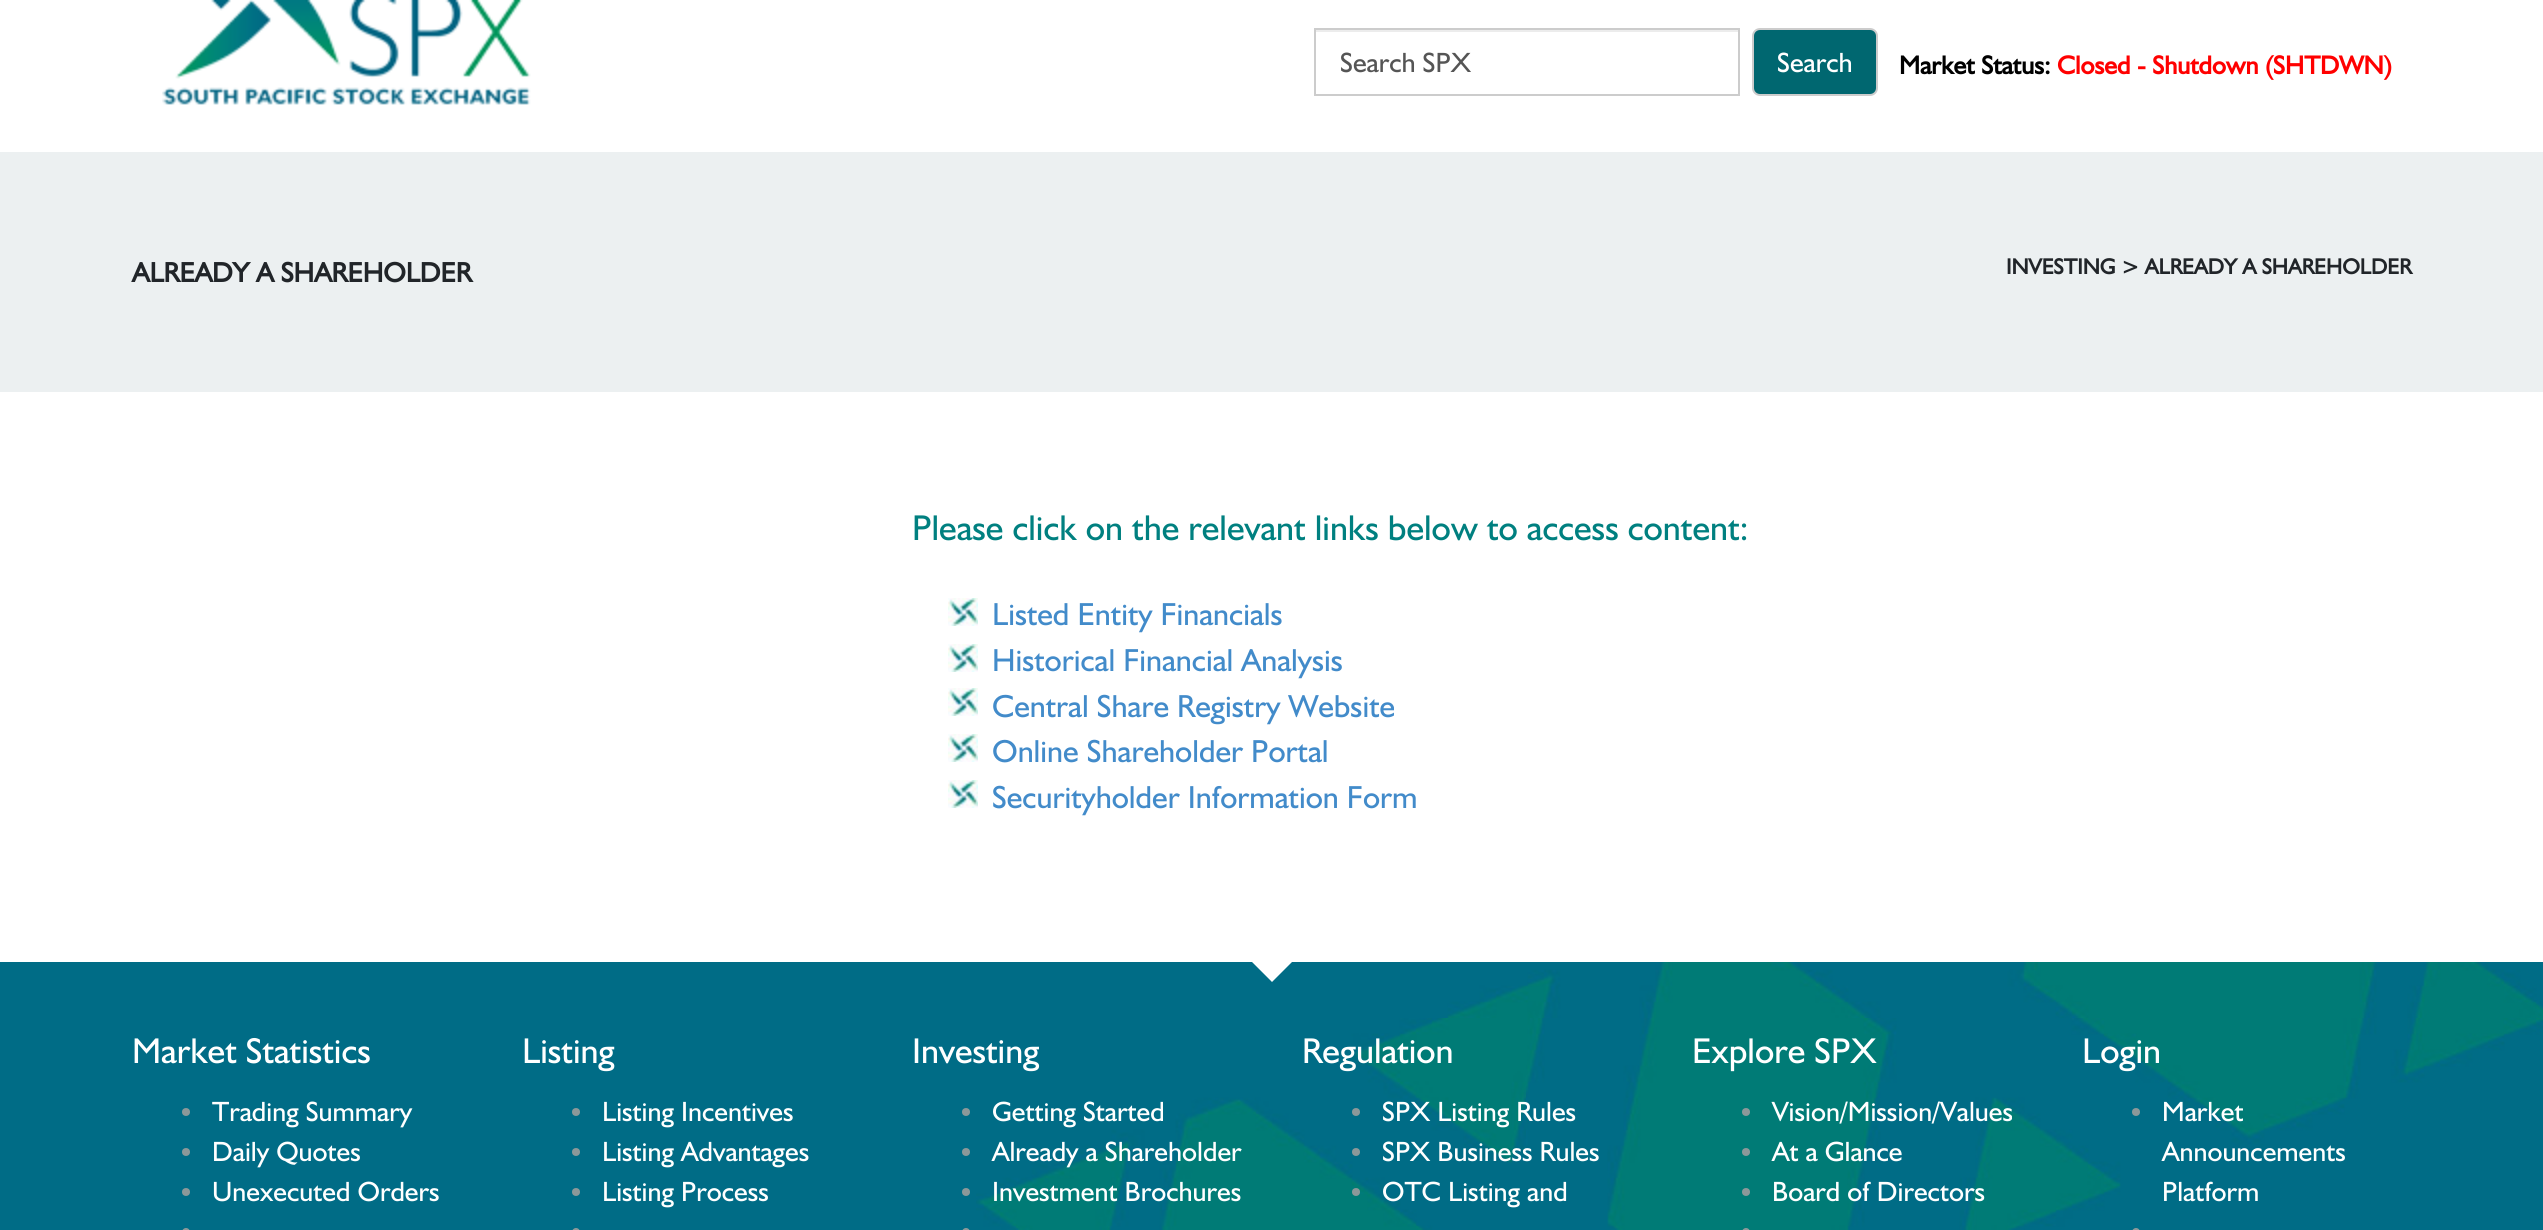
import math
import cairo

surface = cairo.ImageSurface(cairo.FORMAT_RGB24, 2543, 1230)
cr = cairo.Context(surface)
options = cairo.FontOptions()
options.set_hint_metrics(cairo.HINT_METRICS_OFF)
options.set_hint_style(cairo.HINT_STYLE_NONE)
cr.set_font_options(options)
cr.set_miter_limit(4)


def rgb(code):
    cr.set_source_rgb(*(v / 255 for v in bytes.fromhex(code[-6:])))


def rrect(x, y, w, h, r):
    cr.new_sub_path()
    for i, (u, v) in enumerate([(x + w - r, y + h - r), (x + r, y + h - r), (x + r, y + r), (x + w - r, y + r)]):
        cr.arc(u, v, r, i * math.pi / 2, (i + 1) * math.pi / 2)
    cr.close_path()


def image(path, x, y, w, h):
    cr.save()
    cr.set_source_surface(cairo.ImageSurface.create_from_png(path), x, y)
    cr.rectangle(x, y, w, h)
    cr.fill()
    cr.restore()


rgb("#ffffff")
cr.paint()
image("img/1.png", 162, 0, 369, 105)
rgb("#ececec")
cr.rectangle(1316, 30, 422, 2)
cr.fill()
cr.rectangle(1315, 29, 424, 66)
rgb("#cccccc")
cr.stroke()
rgb("#006770")
rrect(1753, 29, 124, 66, 7)
cr.fill_preserve()
rgb("#cccccc")
cr.stroke()
rgb("#ecf0f1")
cr.rectangle(0, 152, 2543, 240)
cr.fill()
image("img/2.png", 948, 598, 30, 28)
image("img/2.png", 948, 644, 30, 28)
image("img/2.png", 948, 688, 30, 28)
image("img/2.png", 948, 734, 30, 28)
image("img/2.png", 948, 780, 30, 28)
rgb("#006c86")
cr.rectangle(0, 962, 976, 268)
cr.fill()
image("img/3.png", 976, 962, 1567, 268)
rgb("#ffffff")
cr.new_path()
cr.move_to(1252, 962)
cr.line_to(1292, 962)
cr.line_to(1272, 982)
cr.close_path()
cr.fill()
rgb("#8c9899")
cr.arc(186, 1112, 4, 0, 2 * math.pi)
cr.fill()
cr.arc(186, 1152, 4, 0, 2 * math.pi)
cr.fill()
cr.arc(186, 1192, 4, 0, 2 * math.pi)
cr.fill()
rrect(182, 1228, 8, 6, 4)
cr.fill()
cr.arc(576, 1112, 4, 0, 2 * math.pi)
cr.fill()
cr.arc(576, 1152, 4, 0, 2 * math.pi)
cr.fill()
cr.arc(576, 1192, 4, 0, 2 * math.pi)
cr.fill()
rrect(572, 1228, 8, 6, 4)
cr.fill()
cr.arc(966, 1112, 4, 0, 2 * math.pi)
cr.fill()
cr.arc(966, 1152, 4, 0, 2 * math.pi)
cr.fill()
cr.arc(966, 1192, 4, 0, 2 * math.pi)
cr.fill()
rrect(962, 1228, 8, 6, 4)
cr.fill()
cr.arc(1356, 1112, 4, 0, 2 * math.pi)
cr.fill()
cr.arc(1356, 1152, 4, 0, 2 * math.pi)
cr.fill()
cr.arc(1356, 1192, 4, 0, 2 * math.pi)
cr.fill()
cr.arc(1746, 1112, 4, 0, 2 * math.pi)
cr.fill()
cr.arc(1746, 1152, 4, 0, 2 * math.pi)
cr.fill()
cr.arc(1746, 1192, 4, 0, 2 * math.pi)
cr.fill()
rrect(1742, 1228, 8, 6, 4)
cr.fill()
cr.arc(2136, 1112, 4, 0, 2 * math.pi)
cr.fill()
rrect(2132, 1228, 8, 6, 4)
cr.fill()
cr.select_font_face("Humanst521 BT")
cr.set_font_size(28)
rgb("#555555")
cr.move_to(1340, 72)
cr.show_text("Search SPX")
rgb("#ffffff")
cr.move_to(1777, 72)
cr.show_text("Search")
cr.select_font_face("Humanst521 BT", cairo.FONT_SLANT_NORMAL, cairo.FONT_WEIGHT_BOLD)
cr.set_font_size(26)
rgb("#000000")
cr.move_to(1899, 74)
cr.show_text("Market Status:")
rgb("#ff0000")
cr.move_to(2057, 74)
cr.show_text("Closed - Shutdown (SHTDWN)")
cr.set_font_size(28)
rgb("#212529")
cr.move_to(132, 282)
cr.show_text("ALREADY A SHAREHOLDER")
cr.set_font_size(22)
cr.move_to(2006, 274)
cr.show_text("INVESTING > ALREADY A SHAREHOLDER")
cr.select_font_face("Humanst521 BT")
cr.set_font_size(36)
rgb("#008080")
cr.move_to(912, 540)
cr.show_text("Please click on the relevant links below to access content:")
cr.set_font_size(32)
rgb("#428bca")
for x, y, s in [
    (992, 625, "Listed Entity Financials"),
    (992, 671, "Historical Financial Analysis"),
    (992, 717, "Central Share Registry Website"),
    (992, 762, "Online Shareholder Portal"),
    (992, 808, "Securityholder Information Form"),
]:
    cr.move_to(x, y)
    cr.show_text(s)
cr.set_font_size(36)
rgb("#ffffff")
cr.move_to(132, 1063)
cr.show_text("Market Statistics")
cr.set_font_size(28)
for x, y, s in [
    (212, 1121, "Trading Summary"),
    (212, 1161, "Daily Quotes"),
    (212, 1201, "Unexecuted Orders"),
]:
    cr.move_to(x, y)
    cr.show_text(s)
cr.set_font_size(36)
cr.move_to(522, 1063)
cr.show_text("Listing")
cr.set_font_size(28)
for x, y, s in [
    (602, 1121, "Listing Incentives"),
    (602, 1161, "Listing Advantages"),
    (602, 1201, "Listing Process"),
]:
    cr.move_to(x, y)
    cr.show_text(s)
cr.set_font_size(36)
cr.move_to(912, 1063)
cr.show_text("Investing")
cr.set_font_size(28)
for x, y, s in [
    (992, 1121, "Getting Started"),
    (992, 1161, "Already a Shareholder"),
    (992, 1201, "Investment Brochures"),
]:
    cr.move_to(x, y)
    cr.show_text(s)
cr.set_font_size(36)
cr.move_to(1302, 1063)
cr.show_text("Regulation")
cr.set_font_size(28)
for x, y, s in [
    (1382, 1121, "SPX Listing Rules"),
    (1382, 1161, "SPX Business Rules"),
    (1382, 1201, "OTC Listing and"),
]:
    cr.move_to(x, y)
    cr.show_text(s)
cr.set_font_size(36)
cr.move_to(1692, 1063)
cr.show_text("Explore SPX")
cr.set_font_size(28)
for x, y, s in [
    (1772, 1121, "Vision/Mission/Values"),
    (1772, 1161, "At a Glance"),
    (1772, 1201, "Board of Directors"),
]:
    cr.move_to(x, y)
    cr.show_text(s)
cr.set_font_size(36)
cr.move_to(2082, 1063)
cr.show_text("Login")
cr.set_font_size(28)
for x, y, s in [
    (2162, 1121, "Market"),
    (2162, 1161, "Announcements"),
    (2162, 1201, "Platform"),
]:
    cr.move_to(x, y)
    cr.show_text(s)
surface.write_to_png("page.png")
